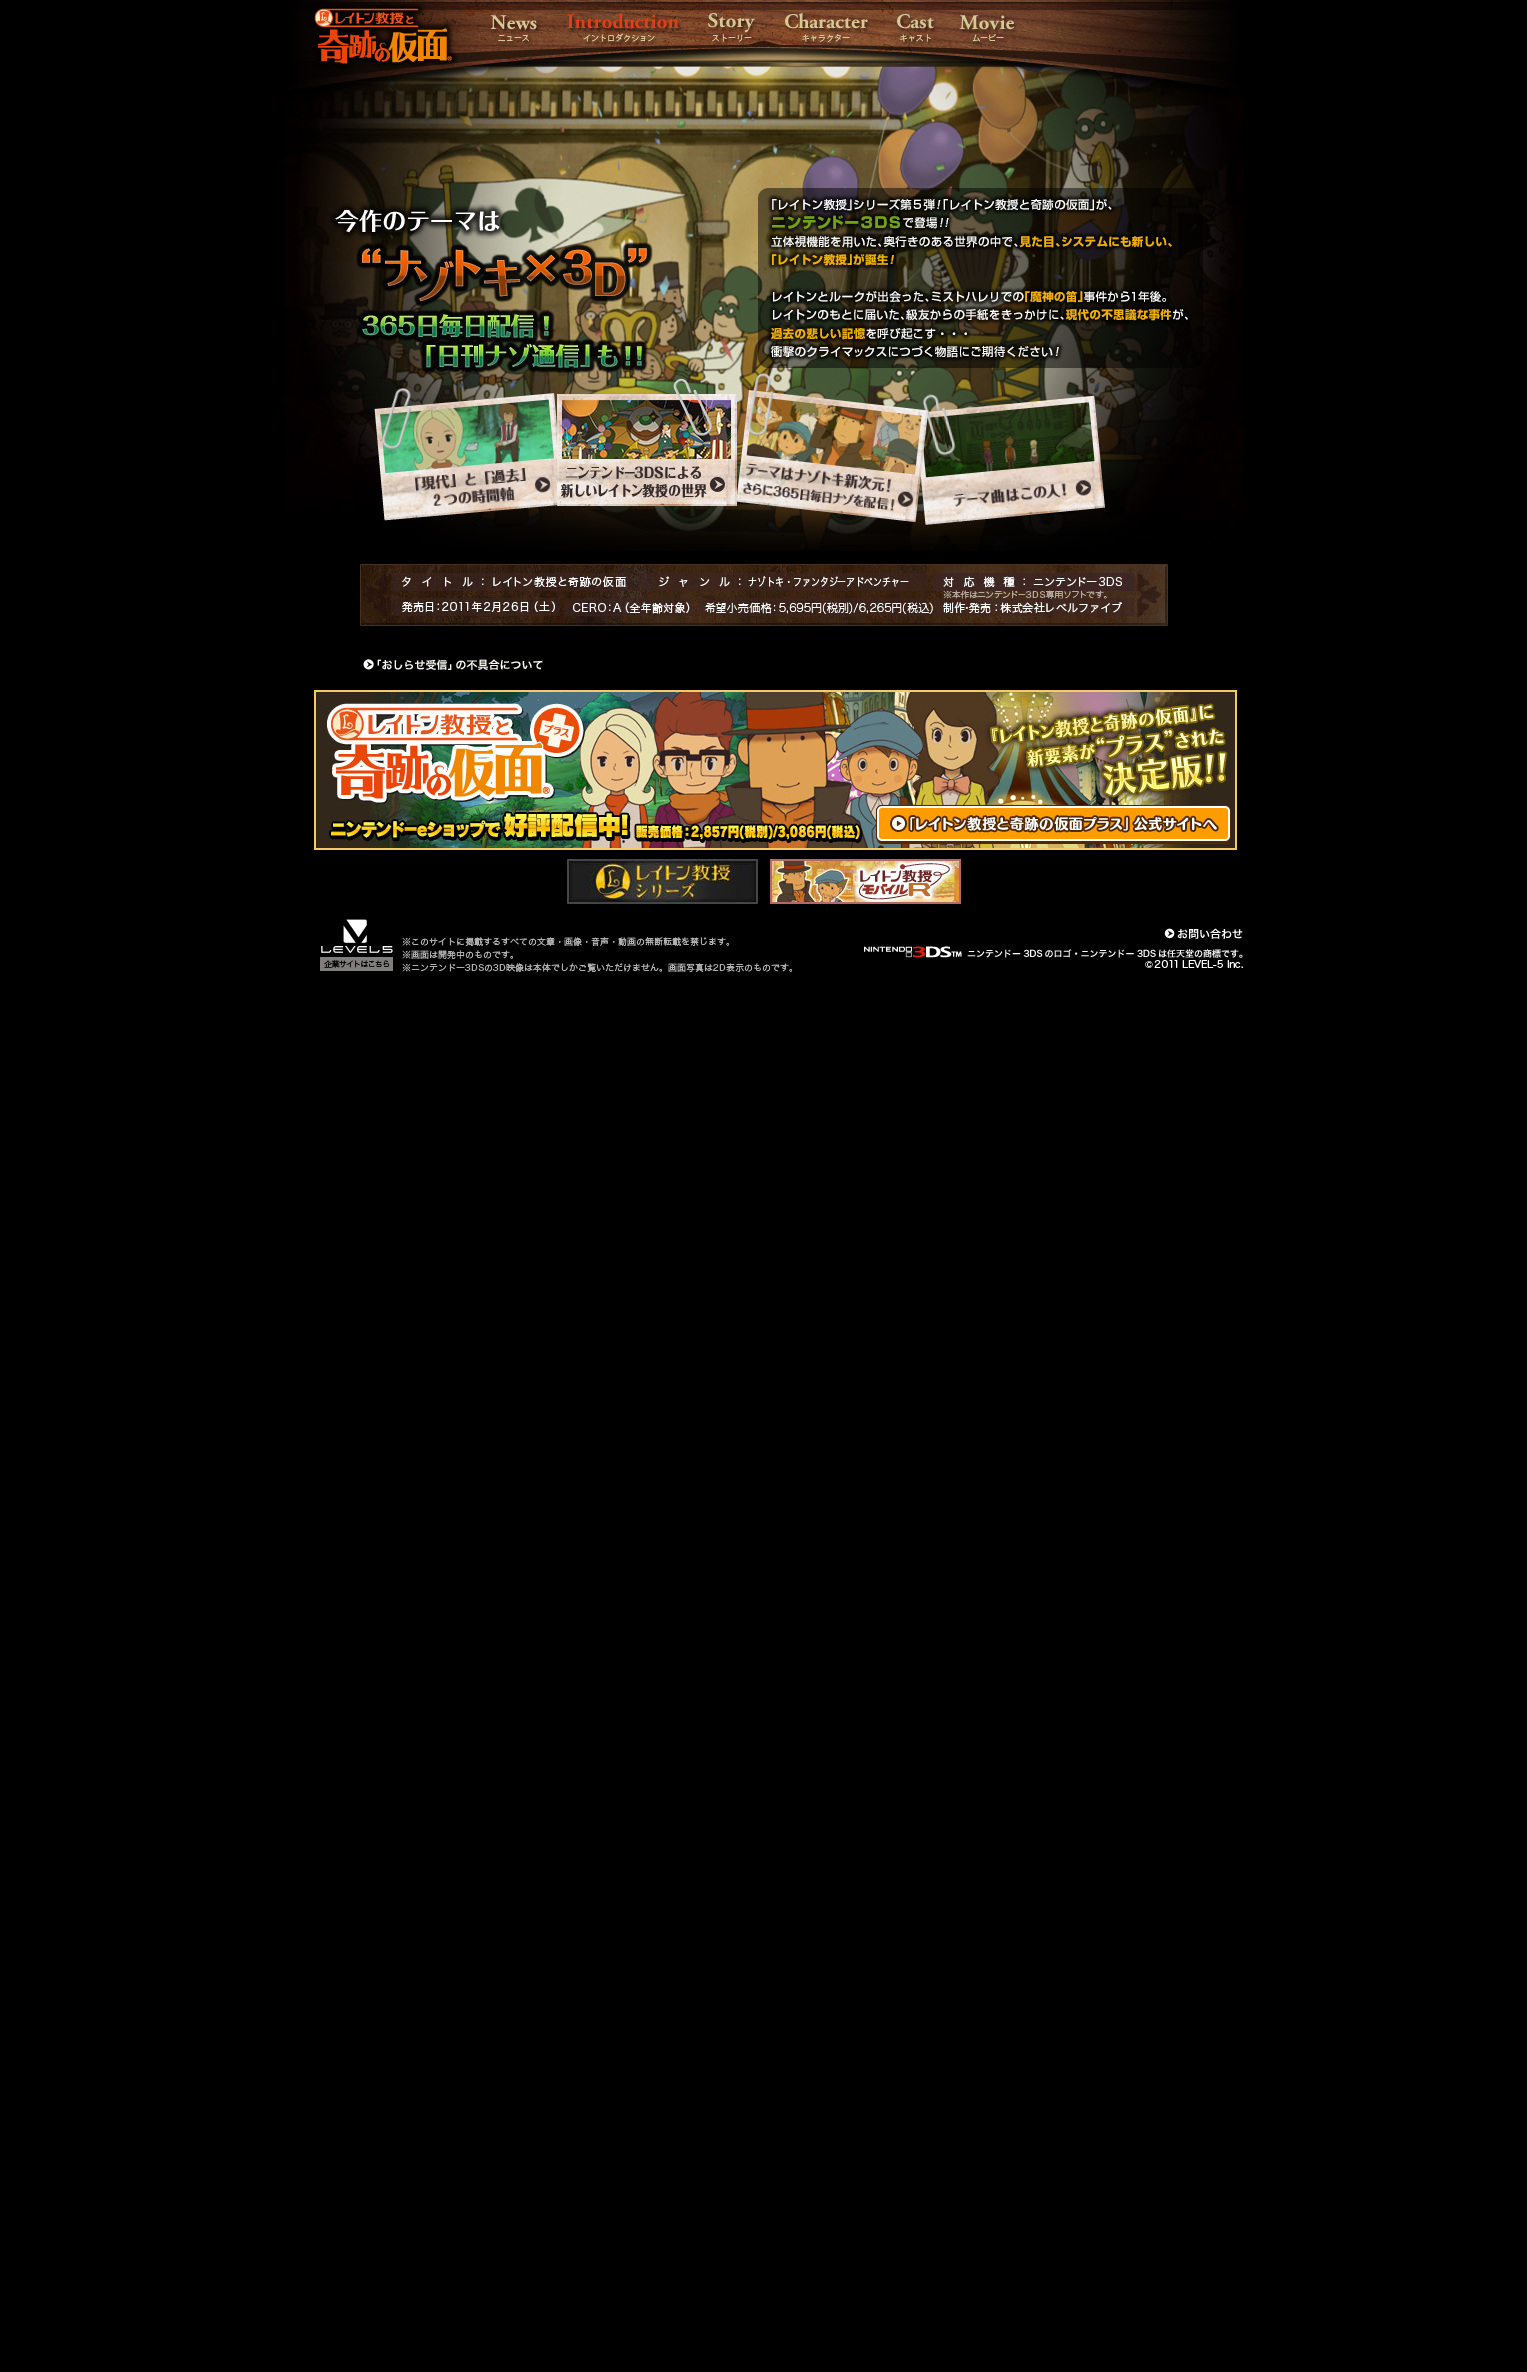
import math
import cairo

surface = cairo.ImageSurface(cairo.FORMAT_RGB24, 1527, 2372)
cr = cairo.Context(surface)
options = cairo.FontOptions()
options.set_hint_metrics(cairo.HINT_METRICS_OFF)
options.set_hint_style(cairo.HINT_STYLE_NONE)
cr.set_font_options(options)
cr.set_miter_limit(4)


def rgb(code):
    cr.set_source_rgb(*(v / 255 for v in bytes.fromhex(code[-6:])))


def image(path, x, y, w, h):
    cr.save()
    cr.set_source_surface(cairo.ImageSurface.create_from_png(path), x, y)
    cr.rectangle(x, y, w, h)
    cr.fill()
    cr.restore()


rgb("#000000")
cr.paint()
image("img/1.png", 284, 0, 960, 551)
image("img/2.png", 360, 564, 808, 62)
image("img/3.png", 363, 659, 180, 11)
image("img/4.png", 314, 690, 923, 160)
image("img/5.png", 567, 859, 191, 45)
image("img/6.png", 770, 859, 191, 45)
image("img/7.png", 320, 919, 73, 52)
image("img/8.png", 1164, 928, 79, 11)
image("img/9.png", 402, 937, 391, 35)
image("img/10.png", 864, 946, 379, 12)
image("img/11.png", 1145, 960, 98, 8)
surface.write_to_png("page.png")
